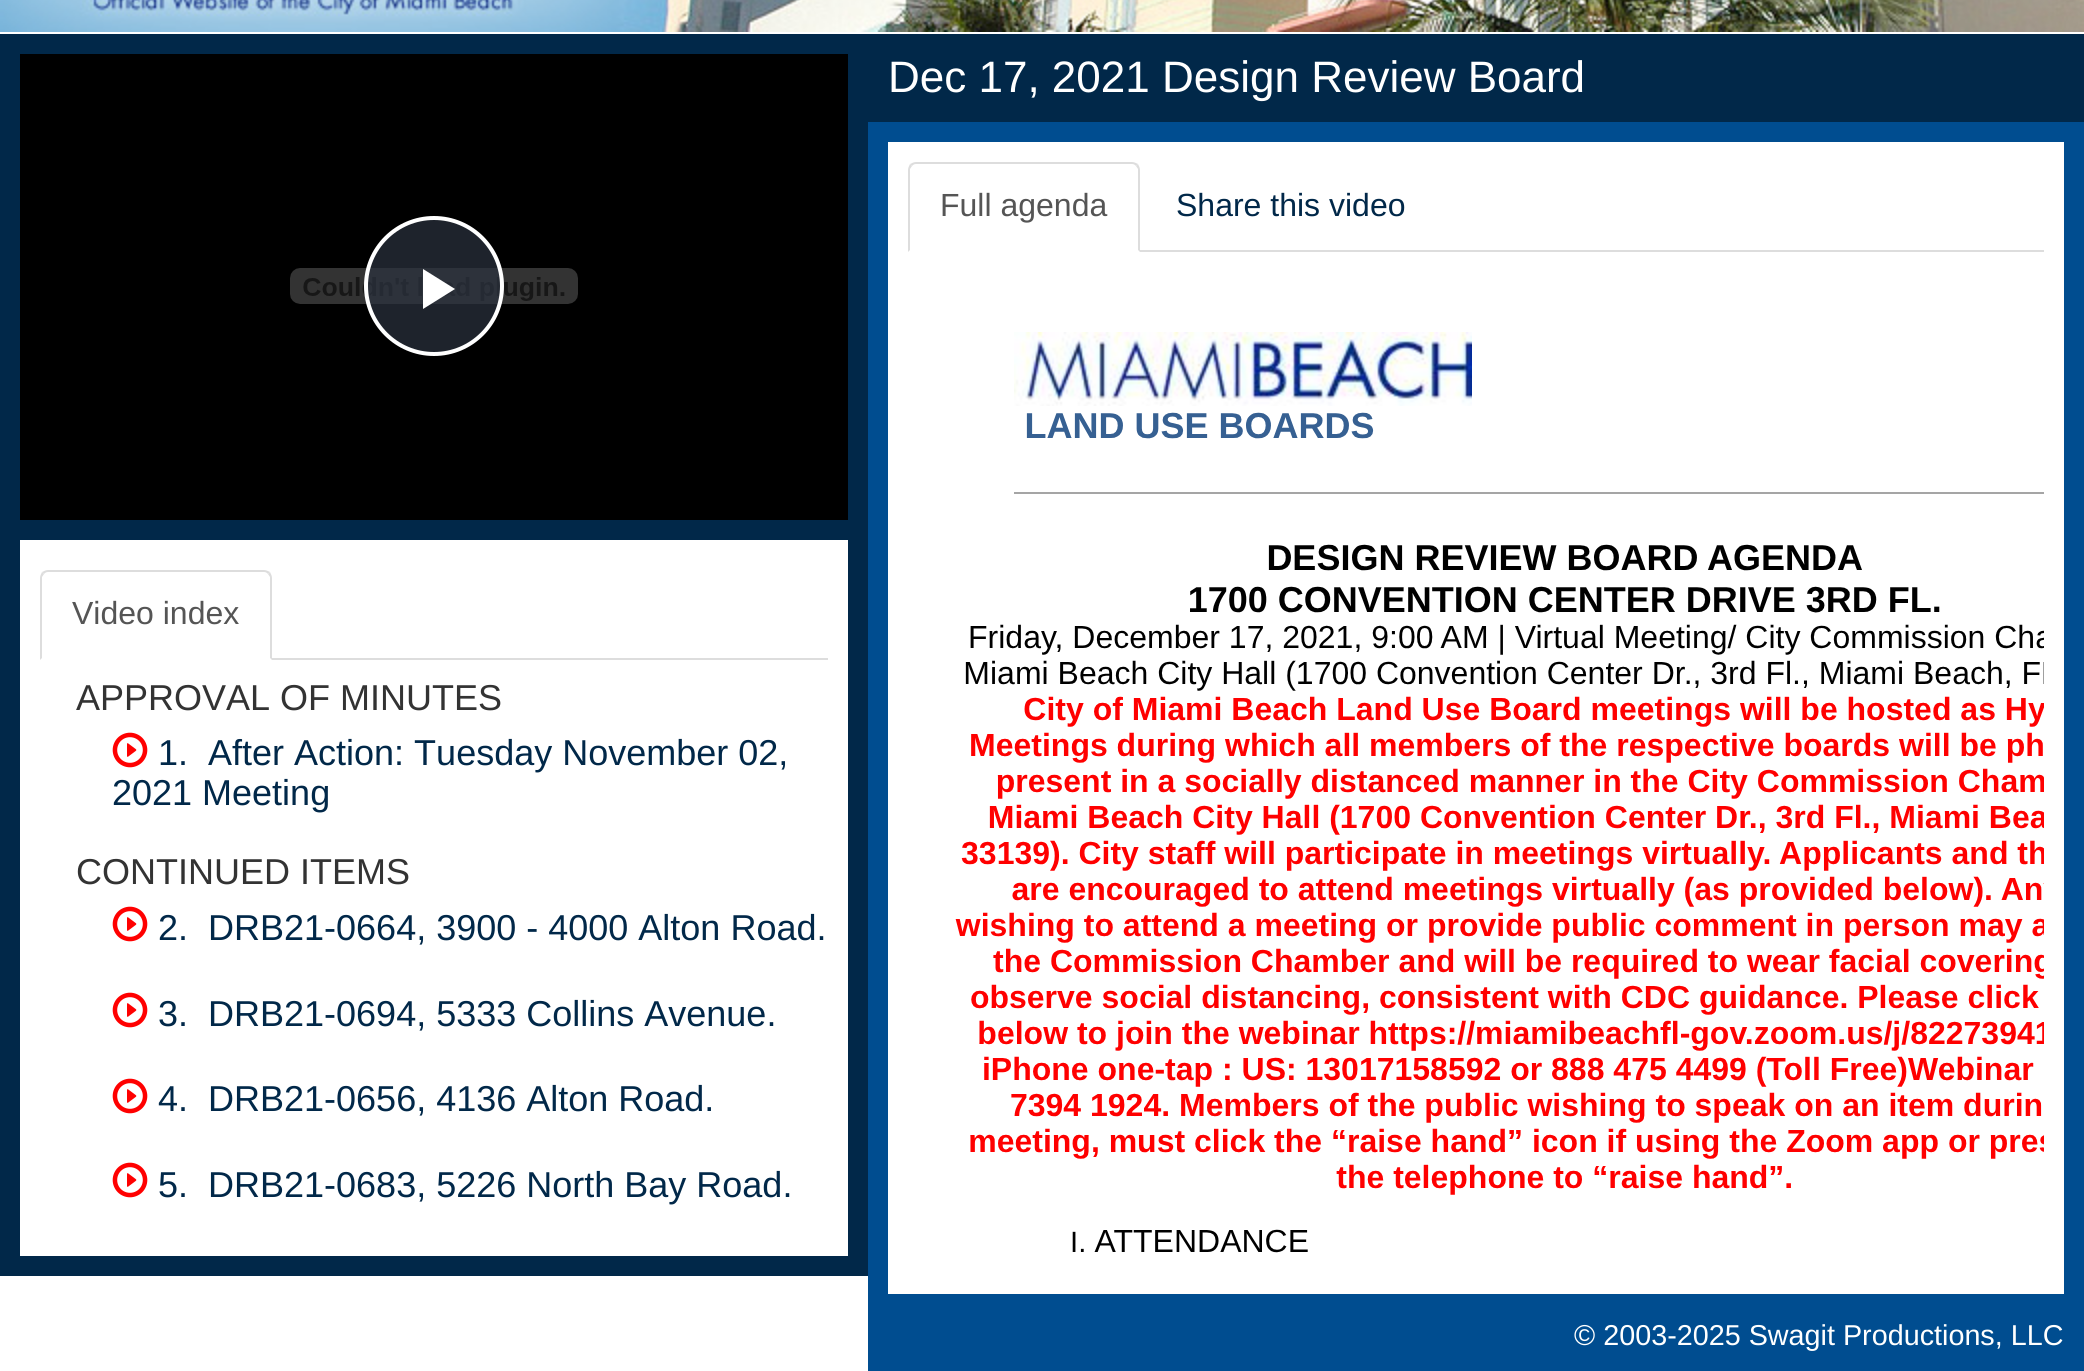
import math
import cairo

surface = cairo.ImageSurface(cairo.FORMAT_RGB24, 2084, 1371)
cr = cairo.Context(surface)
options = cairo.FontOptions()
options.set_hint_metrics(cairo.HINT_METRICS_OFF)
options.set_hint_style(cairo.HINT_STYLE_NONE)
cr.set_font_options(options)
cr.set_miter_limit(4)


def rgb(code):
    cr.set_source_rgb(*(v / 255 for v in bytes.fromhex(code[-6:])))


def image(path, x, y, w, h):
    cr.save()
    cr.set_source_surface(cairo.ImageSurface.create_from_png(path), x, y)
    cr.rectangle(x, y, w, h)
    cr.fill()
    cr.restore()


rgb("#ffffff")
cr.paint()
image("img/1.png", 0, 0, 2084, 32)
rgb("#012849")
cr.rectangle(0, 34, 868, 1242)
cr.fill()
rgb("#000000")
cr.rectangle(20, 54, 828, 466)
cr.fill()
image("img/2.png", 290, 268, 288, 36)
cr.set_source_rgba(0.169, 0.2, 0.247, 0.7)
cr.arc(434, 286, 68, 0, 2 * math.pi)
cr.fill_preserve()
rgb("#ffffff")
cr.set_line_width(4)
cr.stroke()
cr.new_path()
cr.move_to(423, 269)
cr.line_to(423, 309)
cr.line_to(455, 289)
cr.close_path()
cr.fill()
cr.rectangle(20, 540, 828, 716)
cr.fill()
rgb("#dddddd")
cr.rectangle(272, 658, 556, 2)
cr.fill()
cr.new_path()
cr.move_to(48, 570)
cr.curve_to(46, 570, 44, 571, 42, 572)
cr.line_to(44, 574)
cr.curve_to(45, 573, 46, 572, 48, 572)
cr.line_to(264, 572)
cr.curve_to(266, 572, 267, 573, 268, 574)
cr.line_to(270, 572)
cr.curve_to(268, 571, 266, 570, 264, 570)
cr.close_path()
cr.fill()
cr.new_path()
cr.move_to(272, 660)
cr.line_to(272, 578)
cr.curve_to(272, 576, 271, 574, 270, 572)
cr.line_to(268, 574)
cr.line_to(270, 577)
cr.line_to(270, 658)
cr.close_path()
cr.fill()
cr.new_path()
cr.move_to(40, 660)
cr.line_to(42, 658)
cr.line_to(42, 577)
cr.line_to(44, 574)
cr.line_to(42, 572)
cr.curve_to(41, 574, 40, 576, 40, 578)
cr.close_path()
cr.fill()
image("img/3.png", 112, 732, 36, 36)
image("img/3.png", 112, 906, 36, 36)
image("img/3.png", 112, 992, 36, 36)
image("img/3.png", 112, 1078, 36, 36)
image("img/3.png", 112, 1162, 36, 36)
for x, y, w, h, color in [
    (868, 34, 1216, 88, "#012849"),
    (868, 122, 1216, 1249, "#004d90"),
    (888, 142, 1176, 1152, "#ffffff"),
    (1140, 250, 904, 2, "#dddddd"),
]:
    rgb(color)
    cr.rectangle(x, y, w, h)
    cr.fill()
cr.new_path()
cr.move_to(916, 162)
cr.curve_to(914, 162, 912, 163, 910, 164)
cr.line_to(912, 166)
cr.curve_to(913, 165, 914, 164, 916, 164)
cr.line_to(1132, 164)
cr.curve_to(1134, 164, 1135, 165, 1136, 166)
cr.line_to(1138, 164)
cr.curve_to(1136, 163, 1134, 162, 1132, 162)
cr.close_path()
cr.fill()
cr.new_path()
cr.move_to(1140, 252)
cr.line_to(1140, 170)
cr.curve_to(1140, 168, 1139, 166, 1138, 164)
cr.line_to(1136, 166)
cr.line_to(1138, 169)
cr.line_to(1138, 250)
cr.close_path()
cr.fill()
cr.new_path()
cr.move_to(908, 252)
cr.line_to(910, 250)
cr.line_to(910, 169)
cr.line_to(912, 166)
cr.line_to(910, 164)
cr.curve_to(909, 166, 908, 168, 908, 170)
cr.close_path()
cr.fill()
image("img/4.png", 955, 332, 1089, 921)
cr.select_font_face("Liberation Sans")
cr.set_font_size(32)
rgb("#555555")
cr.move_to(72, 624)
cr.show_text("Video index")
cr.set_font_size(36)
rgb("#333333")
cr.move_to(76, 710)
cr.show_text("APPROVAL OF MINUTES")
rgb("#012849")
cr.move_to(158, 765)
cr.show_text("1.  After Action: Tuesday November 02,")
cr.move_to(112, 805)
cr.show_text("2021 Meeting")
rgb("#333333")
cr.move_to(76, 884)
cr.show_text("CONTINUED ITEMS")
rgb("#012849")
for x, y, s in [
    (158, 940, "2.  DRB21-0664, 3900 - 4000 Alton Road."),
    (158, 1026, "3.  DRB21-0694, 5333 Collins Avenue."),
    (158, 1111, "4.  DRB21-0656, 4136 Alton Road."),
    (158, 1197, "5.  DRB21-0683, 5226 North Bay Road."),
]:
    cr.move_to(x, y)
    cr.show_text(s)
cr.set_font_size(44)
rgb("#ffffff")
cr.move_to(888, 92)
cr.show_text("Dec 17, 2021 Design Review Board")
cr.set_font_size(32)
rgb("#555555")
cr.move_to(940, 216)
cr.show_text("Full agenda")
rgb("#012849")
cr.move_to(1176, 216)
cr.show_text("Share this video")
cr.set_font_size(28.75)
rgb("#ffffff")
cr.move_to(1574, 1345)
cr.show_text("© 2003-2025 Swagit Productions, LLC")
surface.write_to_png("page.png")
